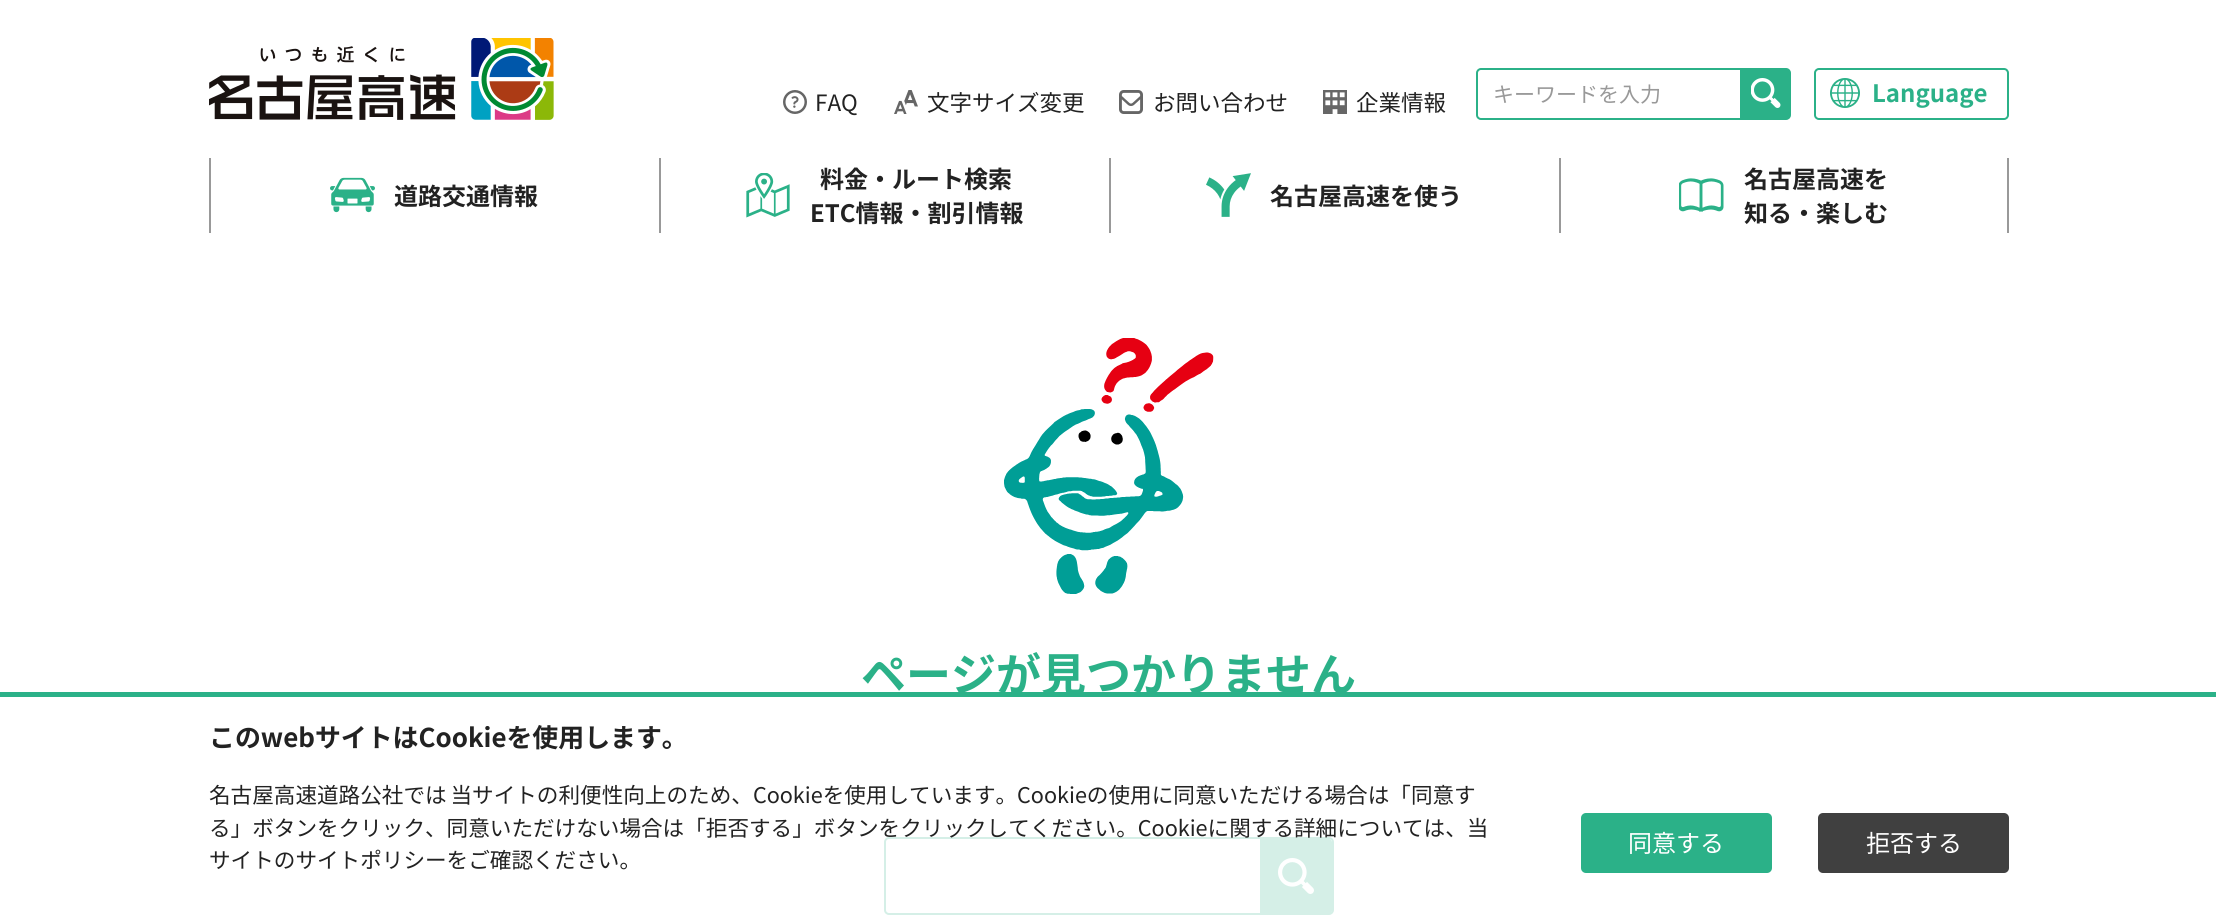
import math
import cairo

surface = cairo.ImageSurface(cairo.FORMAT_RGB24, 2216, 917)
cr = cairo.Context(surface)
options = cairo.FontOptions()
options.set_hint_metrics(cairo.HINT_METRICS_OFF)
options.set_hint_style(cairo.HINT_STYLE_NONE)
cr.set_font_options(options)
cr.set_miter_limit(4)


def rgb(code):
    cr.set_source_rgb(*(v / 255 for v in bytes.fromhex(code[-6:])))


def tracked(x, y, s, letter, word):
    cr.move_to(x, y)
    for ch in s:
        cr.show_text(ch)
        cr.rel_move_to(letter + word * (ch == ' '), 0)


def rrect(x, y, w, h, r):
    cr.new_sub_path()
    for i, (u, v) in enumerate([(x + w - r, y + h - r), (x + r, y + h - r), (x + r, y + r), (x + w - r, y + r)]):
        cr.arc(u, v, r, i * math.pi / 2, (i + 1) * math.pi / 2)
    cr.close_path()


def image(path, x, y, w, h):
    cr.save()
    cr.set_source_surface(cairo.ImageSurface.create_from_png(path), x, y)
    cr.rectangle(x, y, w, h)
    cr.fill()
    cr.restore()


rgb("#ffffff")
cr.paint()
image("img/1.png", 209, 38, 345, 82)
image("img/2.png", 783, 90, 24, 24)
image("img/3.png", 894, 90, 24, 24)
image("img/4.png", 1119, 90, 24, 24)
image("img/5.png", 1323, 90, 24, 24)
rrect(1477, 69, 313, 50, 4)
rgb("#2bb188")
cr.stroke()
cr.new_path()
cr.move_to(1740, 69)
cr.line_to(1787, 69)
cr.curve_to(1788.5, 69, 1790, 70.5, 1790, 72)
cr.line_to(1790, 116)
cr.curve_to(1790, 117.5, 1788.5, 119, 1787, 119)
cr.line_to(1740, 119)
cr.close_path()
cr.fill()
image("img/6.png", 1751, 78, 30, 30)
rrect(1815, 69, 193, 50, 4)
cr.stroke()
image("img/7.png", 1830, 78, 30, 30)
rgb("#999999")
cr.rectangle(209, 158, 2, 75)
cr.fill()
image("img/8.png", 330, 177, 45, 36)
cr.rectangle(659, 158, 2, 75)
cr.fill()
image("img/9.png", 746, 173, 44, 45)
cr.rectangle(1109, 158, 2, 75)
cr.fill()
image("img/10.png", 1206, 173, 45, 44)
cr.rectangle(2007, 158, 2, 75)
cr.fill()
cr.rectangle(1559, 158, 2, 75)
cr.fill()
image("img/11.png", 1679, 178, 45, 34)
image("img/12.png", 1004, 338, 210, 256)
rrect(885, 838, 448, 76, 4)
rgb("#2bb188")
cr.stroke()
cr.new_path()
cr.move_to(1260, 839)
cr.line_to(1329, 839)
cr.curve_to(1330.5, 839, 1332, 840.5, 1332, 842)
cr.line_to(1332, 911)
cr.curve_to(1332, 912.5, 1330.5, 914, 1329, 914)
cr.line_to(1260, 914)
cr.close_path()
cr.fill()
image("img/13.png", 1278, 858, 36, 36)
cr.set_source_rgba(1, 1, 1, 0.8)
cr.rectangle(884, 837, 450, 78)
cr.fill()
rgb("#2bb188")
cr.rectangle(0, 692, 2216, 5)
cr.fill()
rrect(1581, 813, 191, 60, 5)
cr.fill()
rgb("#404040")
rrect(1818, 813, 191, 60, 5)
cr.fill()
cr.select_font_face("Noto Sans JP")
cr.set_font_size(22.5)
rgb("#222222")
for x, y, s in [
    (815, 111, "FAQ"),
    (927, 111, "文字サイズ変更"),
    (1153, 111, "お問い合わせ"),
    (1356, 111, "企業情報"),
]:
    cr.move_to(x, y)
    cr.show_text(s)
cr.set_font_size(21)
rgb("#999999")
cr.move_to(1493, 102)
cr.show_text("キーワードを入力")
cr.select_font_face("Noto Sans JP", cairo.FONT_SLANT_NORMAL, cairo.FONT_WEIGHT_BOLD)
cr.set_font_size(24)
rgb("#2bb188")
cr.move_to(1872, 102)
cr.show_text("Language")
rgb("#222222")
for x, y, s in [
    (394, 205, "道路交通情報"),
    (820, 188, "料金・ルート検索"),
    (810, 222, "ETC情報・割引情報"),
    (1270, 205, "名古屋高速を使う"),
    (1744, 188, "名古屋高速を"),
    (1744, 222, "知る・楽しむ"),
]:
    cr.move_to(x, y)
    cr.show_text(s)
cr.set_font_size(45)
rgb("#2bb188")
cr.move_to(861, 691)
cr.show_text("ページが見つかりません")
cr.set_font_size(25.9)
rgb("#222222")
cr.move_to(209, 747)
cr.show_text("このwebサイトはCookieを使用します。")
cr.select_font_face("Noto Sans JP")
cr.set_font_size(21.6)
tracked(209, 803, "名古屋高速道路公社では 当サイトの利便性向上のため、Cookieを使用しています。Cookieの使用に同意いただける場合は「同意す", 0, -1)
cr.move_to(209, 836)
cr.show_text("る」ボタンをクリック、同意いただけない場合は「拒否する」ボタンをクリックしてください。Cookieに関する詳細については、当")
cr.move_to(209, 868)
cr.show_text("サイトのサイトポリシーをご確認ください。")
cr.set_font_size(24)
rgb("#ffffff")
cr.move_to(1628, 852)
cr.show_text("同意する")
cr.move_to(1866, 852)
cr.show_text("拒否する")
surface.write_to_png("page.png")
